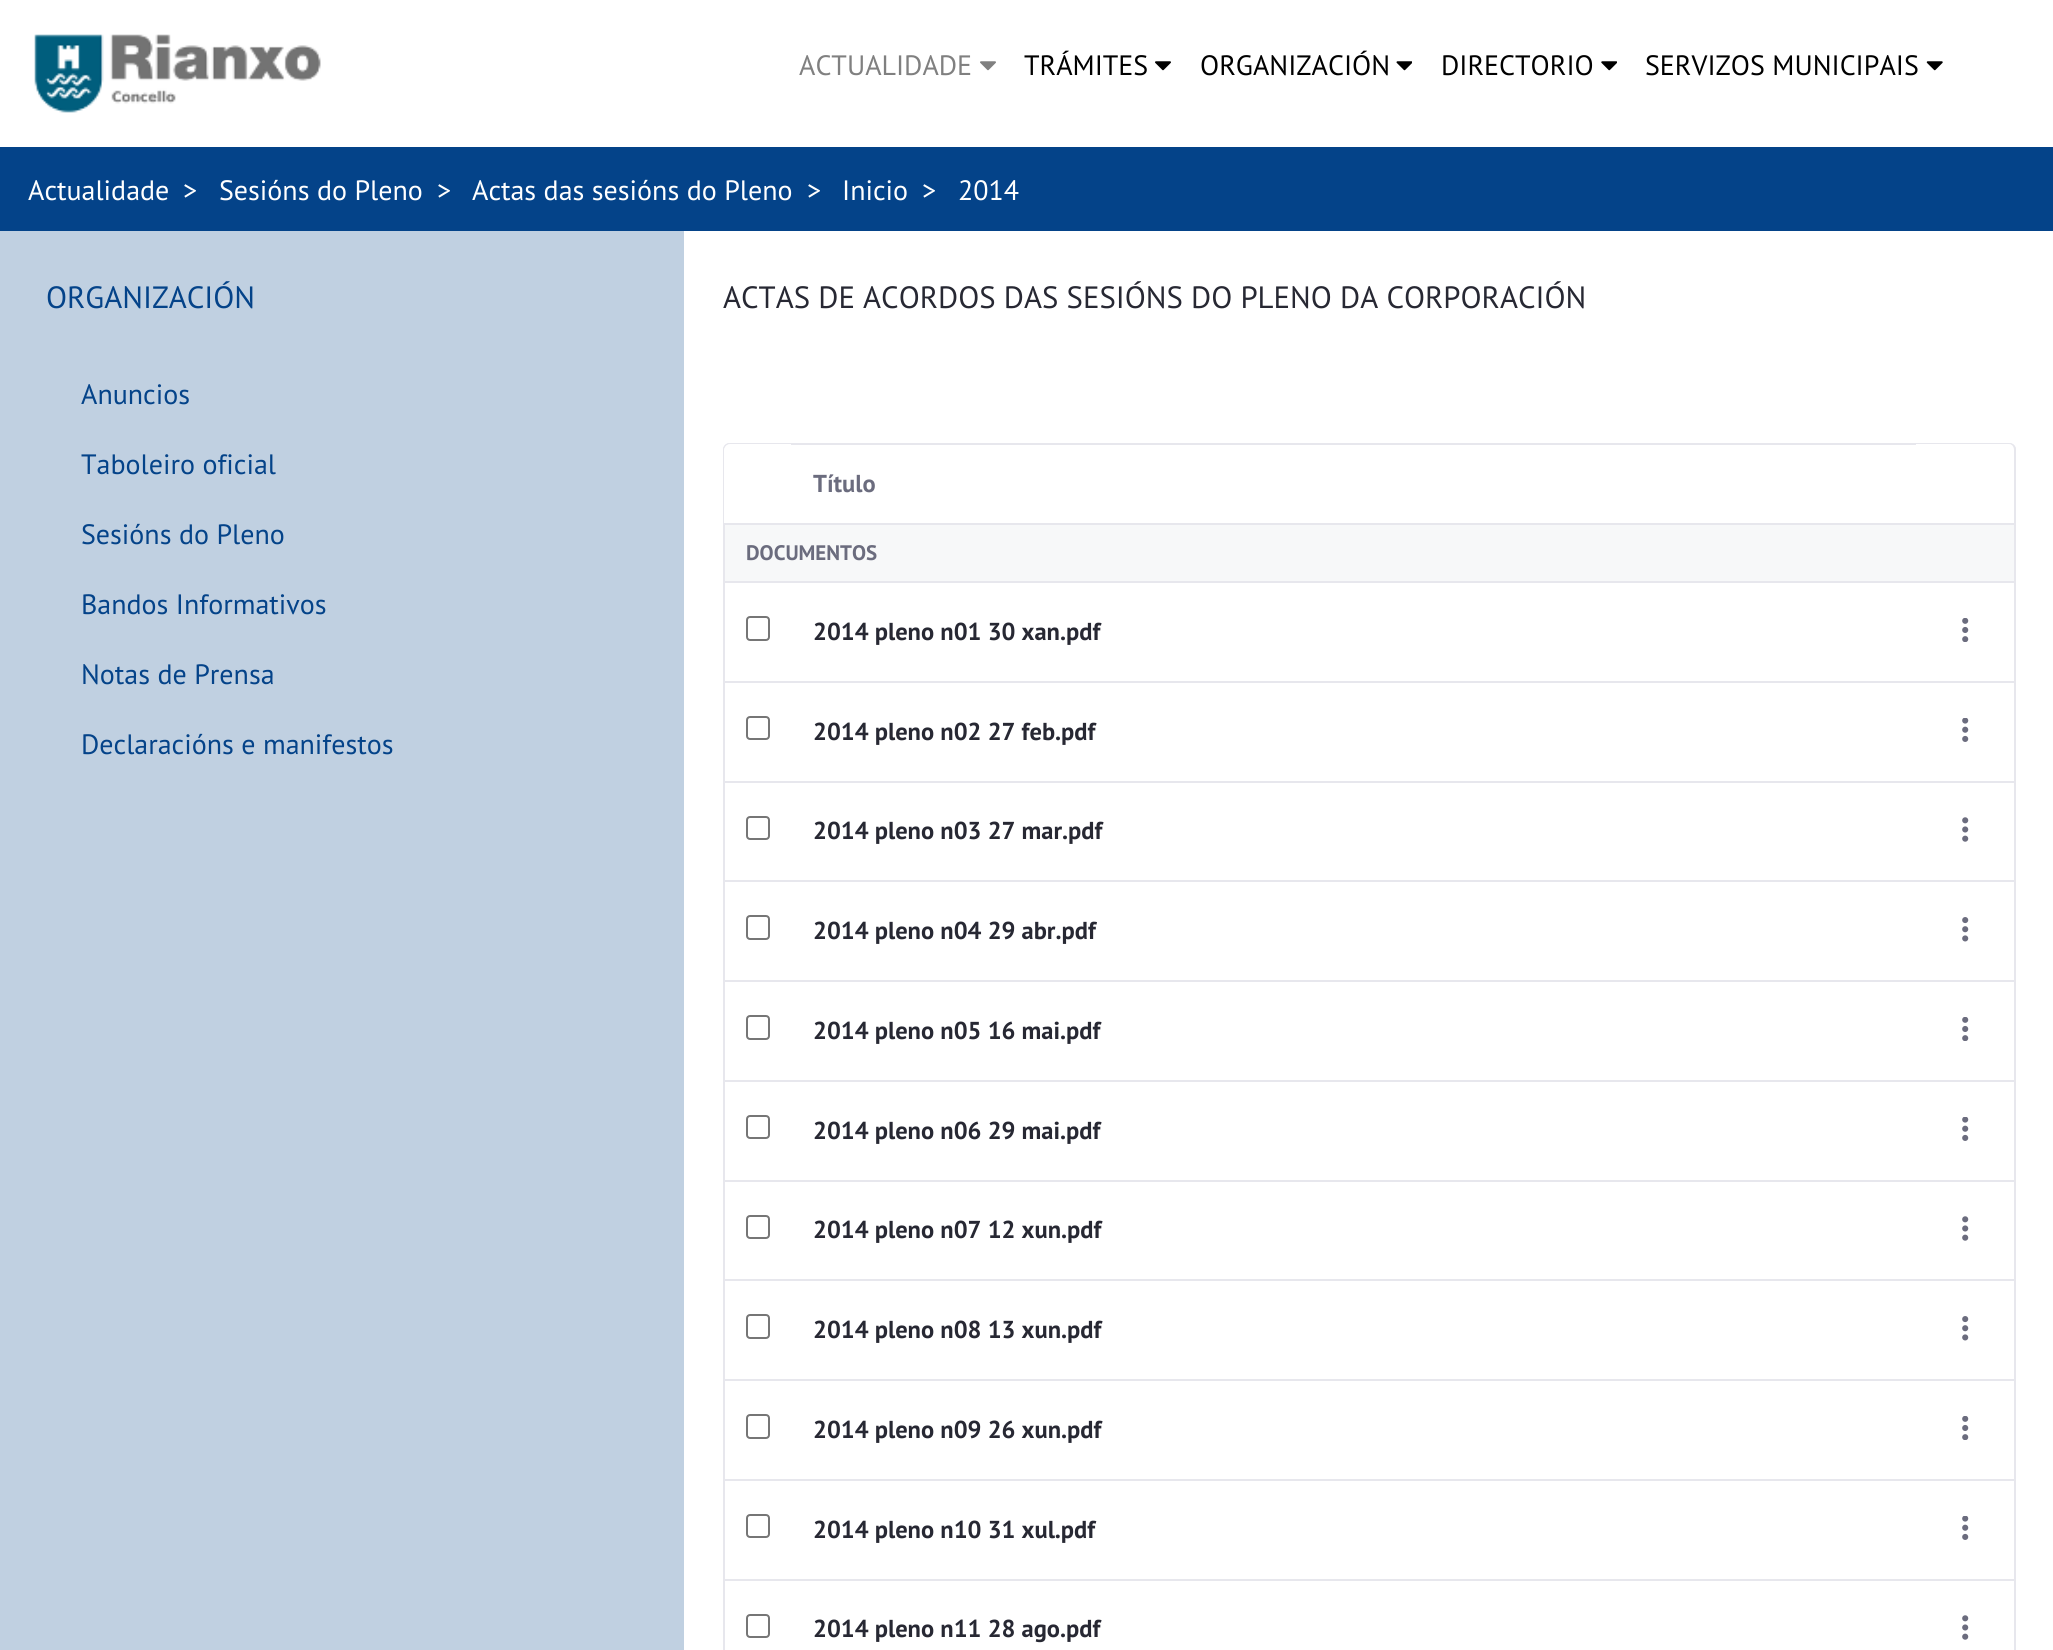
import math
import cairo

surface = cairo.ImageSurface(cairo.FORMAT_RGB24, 2053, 1650)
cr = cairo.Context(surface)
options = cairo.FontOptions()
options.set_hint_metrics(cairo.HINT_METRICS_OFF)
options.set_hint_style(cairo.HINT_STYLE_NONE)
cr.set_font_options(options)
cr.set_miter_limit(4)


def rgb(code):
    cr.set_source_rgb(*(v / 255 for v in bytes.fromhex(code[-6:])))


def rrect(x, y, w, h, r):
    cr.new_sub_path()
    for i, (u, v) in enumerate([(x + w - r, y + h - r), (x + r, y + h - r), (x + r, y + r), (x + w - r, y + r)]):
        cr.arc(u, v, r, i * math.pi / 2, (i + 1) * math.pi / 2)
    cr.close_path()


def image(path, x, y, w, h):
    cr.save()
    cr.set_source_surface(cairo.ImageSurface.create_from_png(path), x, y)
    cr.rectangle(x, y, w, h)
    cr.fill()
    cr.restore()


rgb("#044389")
cr.paint()
rgb("#ffffff")
cr.rectangle(0, 0, 2053, 147)
cr.fill()
image("img/1.png", 34, 34, 287, 79)
image("img/2.png", 980, 61, 16, 10)
image("img/3.png", 1155, 61, 16, 10)
image("img/4.png", 1396, 61, 16, 10)
image("img/5.png", 1601, 61, 16, 10)
image("img/6.png", 1926, 61, 17, 10)
cr.rectangle(684, 231, 1369, 1419)
cr.fill()
rgb("#c0d0e1")
cr.rectangle(0, 231, 684, 1419)
cr.fill()
rgb("#e7e7ed")
cr.new_path()
cr.move_to(730, 443)
cr.curve_to(726, 443, 723, 446, 723, 450)
cr.line_to(723, 523)
cr.line_to(724, 523)
cr.line_to(724, 450)
cr.curve_to(724, 446, 728, 443, 732, 443)
cr.close_path()
cr.fill()
cr.new_path()
cr.move_to(730, 444)
cr.line_to(791, 444)
cr.line_to(791, 443)
cr.line_to(730, 443)
cr.curve_to(726, 443, 723, 446, 723, 450)
cr.line_to(723, 452)
cr.curve_to(723, 448, 726, 444, 730, 444)
cr.close_path()
cr.fill()
cr.rectangle(791, 443, 1125, 2)
cr.fill()
cr.new_path()
cr.move_to(2014, 523)
cr.line_to(2016, 523)
cr.line_to(2016, 450)
cr.curve_to(2016, 446, 2013, 443, 2009, 443)
cr.line_to(2007, 443)
cr.curve_to(2011, 443, 2014, 446, 2014, 450)
cr.close_path()
cr.fill()
cr.new_path()
cr.move_to(1916, 444)
cr.line_to(2009, 444)
cr.curve_to(2013, 444, 2016, 448, 2016, 452)
cr.line_to(2016, 450)
cr.curve_to(2016, 446, 2013, 443, 2009, 443)
cr.line_to(1916, 443)
cr.close_path()
cr.fill()
for x, y, w, h, color in [
    (725, 525, 1289, 56, "#f7f8f9"),
    (723, 523, 2, 1127, "#e7e7ed"),
    (2014, 523, 2, 1127, "#e7e7ed"),
    (723, 523, 1293, 2, "#e7e7ed"),
    (723, 581, 1293, 2, "#e7e7ed"),
]:
    rgb(color)
    cr.rectangle(x, y, w, h)
    cr.fill()
rrect(747, 617, 22, 23, 3)
rgb("#767676")
cr.stroke()
image("img/7.png", 1962, 618, 7, 24)
rgb("#e7e7ed")
cr.rectangle(723, 681, 1293, 2)
cr.fill()
rrect(747, 717, 22, 22, 3)
rgb("#767676")
cr.stroke()
image("img/8.png", 1962, 718, 7, 24)
rgb("#e7e7ed")
cr.rectangle(723, 781, 1293, 2)
cr.fill()
rrect(747, 817, 22, 22, 3)
rgb("#767676")
cr.stroke()
image("img/9.png", 1962, 817, 7, 25)
rgb("#e7e7ed")
cr.rectangle(723, 880, 1293, 2)
cr.fill()
rrect(747, 916, 22, 23, 3)
rgb("#767676")
cr.stroke()
image("img/10.png", 1962, 917, 7, 25)
rgb("#e7e7ed")
cr.rectangle(723, 980, 1293, 2)
cr.fill()
rrect(747, 1016, 22, 23, 3)
rgb("#767676")
cr.stroke()
image("img/7.png", 1962, 1017, 7, 24)
rgb("#e7e7ed")
cr.rectangle(723, 1080, 1293, 2)
cr.fill()
rrect(747, 1116, 22, 22, 3)
rgb("#767676")
cr.stroke()
image("img/8.png", 1962, 1117, 7, 24)
rgb("#e7e7ed")
cr.rectangle(723, 1180, 1293, 2)
cr.fill()
rrect(747, 1216, 22, 22, 3)
rgb("#767676")
cr.stroke()
image("img/9.png", 1962, 1216, 7, 25)
rgb("#e7e7ed")
cr.rectangle(723, 1279, 1293, 2)
cr.fill()
rrect(747, 1315, 22, 23, 3)
rgb("#767676")
cr.stroke()
image("img/10.png", 1962, 1316, 7, 25)
rgb("#e7e7ed")
cr.rectangle(723, 1379, 1293, 2)
cr.fill()
rrect(747, 1415, 22, 23, 3)
rgb("#767676")
cr.stroke()
image("img/7.png", 1962, 1416, 7, 24)
rgb("#e7e7ed")
cr.rectangle(723, 1479, 1293, 2)
cr.fill()
rrect(747, 1515, 22, 22, 3)
rgb("#767676")
cr.stroke()
image("img/8.png", 1962, 1516, 7, 24)
rgb("#e7e7ed")
cr.rectangle(723, 1579, 1293, 2)
cr.fill()
rrect(747, 1615, 22, 22, 3)
rgb("#767676")
cr.stroke()
image("img/9.png", 1962, 1615, 7, 25)
cr.select_font_face("PT Sans")
cr.set_font_size(28)
rgb("#808080")
cr.move_to(799, 75)
cr.show_text("ACTUALIDADE")
rgb("#000000")
for x, y, s in [
    (1024, 75, "TRÁMITES"),
    (1200, 75, "ORGANIZACIÓN"),
    (1441, 75, "DIRECTORIO"),
    (1645, 75, "SERVIZOS MUNICIPAIS"),
]:
    cr.move_to(x, y)
    cr.show_text(s)
rgb("#ffffff")
for x, y, s in [
    (28, 200, "Actualidade"),
    (183, 200, ">"),
    (219, 200, "Sesións do Pleno"),
    (437, 200, ">"),
    (472, 200, "Actas das sesións do Pleno"),
    (807, 200, ">"),
    (842, 200, "Inicio"),
    (922, 200, ">"),
    (958, 200, "2014"),
]:
    cr.move_to(x, y)
    cr.show_text(s)
cr.set_font_size(30.8)
rgb("#044389")
cr.move_to(46, 308)
cr.show_text("ORGANIZACIÓN")
cr.set_font_size(28)
for x, y, s in [
    (81, 404, "Anuncios"),
    (81, 474, "Taboleiro oficial"),
    (81, 544, "Sesións do Pleno"),
    (81, 614, "Bandos Informativos"),
    (81, 684, "Notas de Prensa"),
    (81, 754, "Declaracións e manifestos"),
]:
    cr.move_to(x, y)
    cr.show_text(s)
cr.set_font_size(30.8)
rgb("#272833")
cr.move_to(723, 308)
cr.show_text("ACTAS DE ACORDOS DAS SESIÓNS DO PLENO DA CORPORACIÓN")
cr.select_font_face("PT Sans", cairo.FONT_SLANT_NORMAL, cairo.FONT_WEIGHT_BOLD)
cr.set_font_size(24.5)
rgb("#6b6c7e")
cr.move_to(813, 492)
cr.show_text("Título")
cr.set_font_size(21)
cr.move_to(746, 560)
cr.show_text("DOCUMENTOS")
cr.set_font_size(24.5)
rgb("#272833")
for x, y, s in [
    (813, 640, "2014 pleno n01 30 xan.pdf"),
    (813, 740, "2014 pleno n02 27 feb.pdf"),
    (813, 839, "2014 pleno n03 27 mar.pdf"),
    (813, 939, "2014 pleno n04 29 abr.pdf"),
    (813, 1039, "2014 pleno n05 16 mai.pdf"),
    (813, 1139, "2014 pleno n06 29 mai.pdf"),
    (813, 1238, "2014 pleno n07 12 xun.pdf"),
    (813, 1338, "2014 pleno n08 13 xun.pdf"),
    (813, 1438, "2014 pleno n09 26 xun.pdf"),
    (813, 1538, "2014 pleno n10 31 xul.pdf"),
    (813, 1637, "2014 pleno n11 28 ago.pdf"),
]:
    cr.move_to(x, y)
    cr.show_text(s)
surface.write_to_png("page.png")
